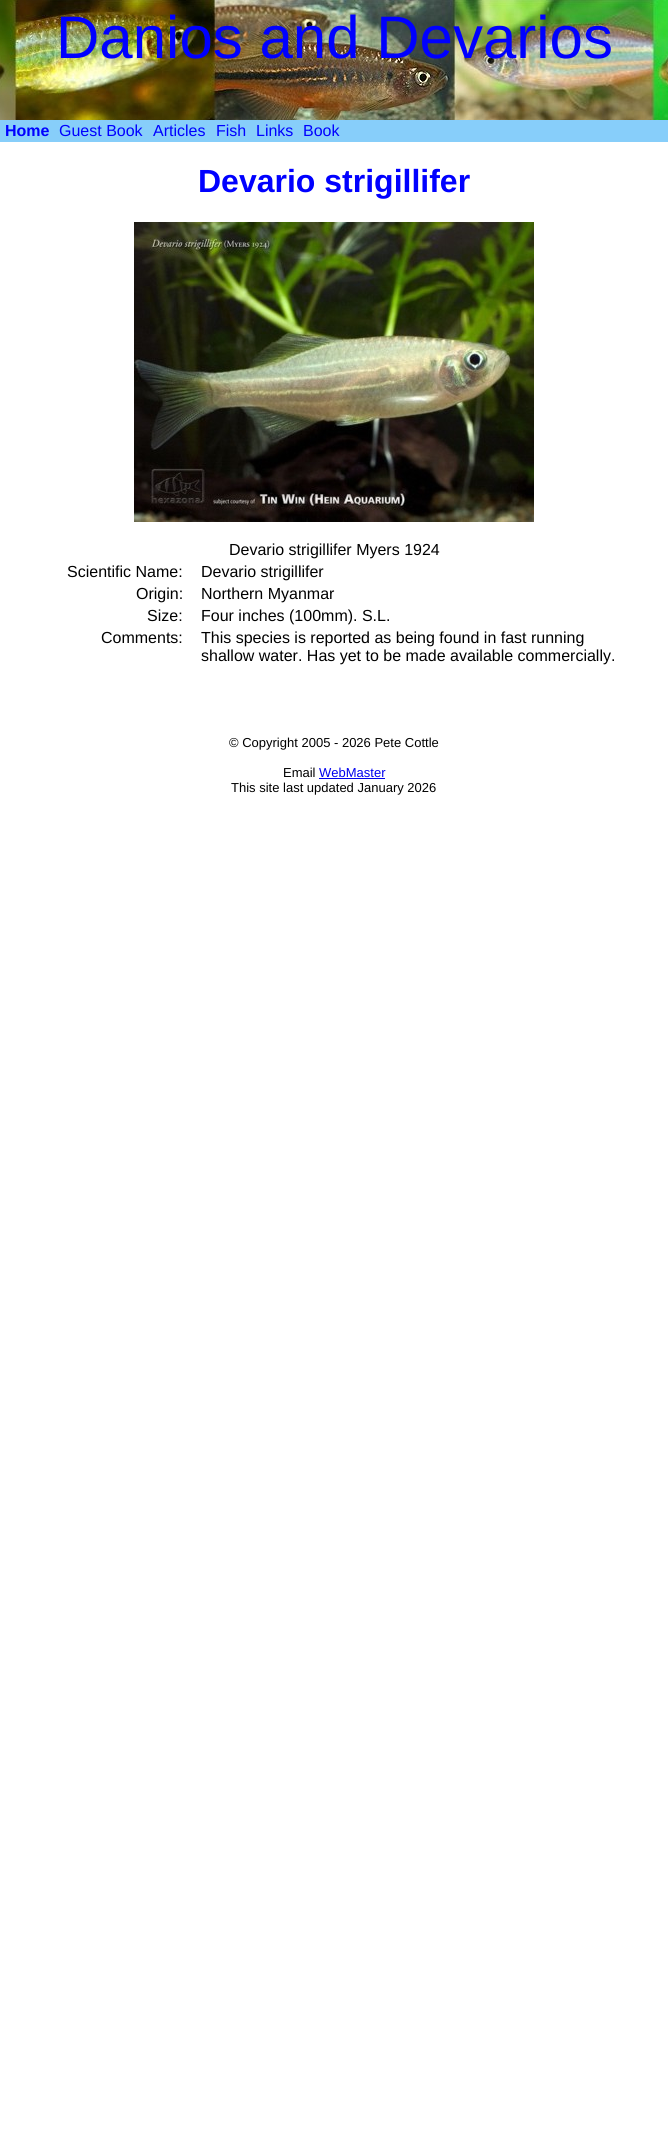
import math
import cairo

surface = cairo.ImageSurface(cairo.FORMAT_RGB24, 668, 2136)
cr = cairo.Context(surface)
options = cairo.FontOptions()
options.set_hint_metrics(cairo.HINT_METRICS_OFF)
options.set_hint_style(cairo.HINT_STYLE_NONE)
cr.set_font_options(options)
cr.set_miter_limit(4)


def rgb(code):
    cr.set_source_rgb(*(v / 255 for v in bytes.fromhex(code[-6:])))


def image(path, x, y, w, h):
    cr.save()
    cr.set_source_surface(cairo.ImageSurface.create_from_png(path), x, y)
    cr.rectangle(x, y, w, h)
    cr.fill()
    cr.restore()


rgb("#ffffff")
cr.paint()
image("img/1.png", 0, 0, 668, 120)
rgb("#87cefa")
cr.rectangle(0, 120, 668, 22)
cr.fill()
image("img/2.png", 134, 222, 400, 300)
rgb("#0000ee")
cr.rectangle(319, 778, 66, 1)
cr.fill()
cr.select_font_face("Liberation Sans")
cr.set_font_size(60)
rgb("#0000ff")
cr.move_to(56, 58)
cr.show_text("Danios and Devarios")
cr.select_font_face("Liberation Sans", cairo.FONT_SLANT_NORMAL, cairo.FONT_WEIGHT_BOLD)
cr.set_font_size(16)
cr.move_to(5, 136)
cr.show_text("Home")
cr.select_font_face("Liberation Sans")
for x, y, s in [
    (59, 136, "Guest Book"),
    (153, 136, "Articles"),
    (216, 136, "Fish"),
    (256, 136, "Links"),
    (303, 136, "Book"),
]:
    cr.move_to(x, y)
    cr.show_text(s)
cr.select_font_face("Liberation Sans", cairo.FONT_SLANT_NORMAL, cairo.FONT_WEIGHT_BOLD)
cr.set_font_size(32)
cr.move_to(198, 192)
cr.show_text("Devario strigillifer")
cr.select_font_face("Liberation Sans")
cr.set_font_size(16)
rgb("#000000")
for x, y, s in [
    (229, 555, "Devario strigillifer Myers 1924"),
    (67, 577, "Scientific Name:"),
    (201, 577, "Devario strigillifer"),
    (136, 599, "Origin:"),
    (201, 599, "Northern Myanmar"),
    (147, 621, "Size:"),
    (201, 621, "Four inches (100mm). S.L."),
    (101, 643, "Comments:"),
    (201, 643, "This species is reported as being found in fast running"),
    (201, 661, "shallow water. Has yet to be made available commercially."),
]:
    cr.move_to(x, y)
    cr.show_text(s)
cr.set_font_size(13)
cr.move_to(229, 747)
cr.show_text("© Copyright 2005 - 2026 Pete Cottle")
cr.move_to(283, 777)
cr.show_text("Email")
rgb("#0000ee")
cr.move_to(319, 777)
cr.show_text("WebMaster")
rgb("#000000")
cr.move_to(231, 792)
cr.show_text("This site last updated January 2026")
surface.write_to_png("page.png")
